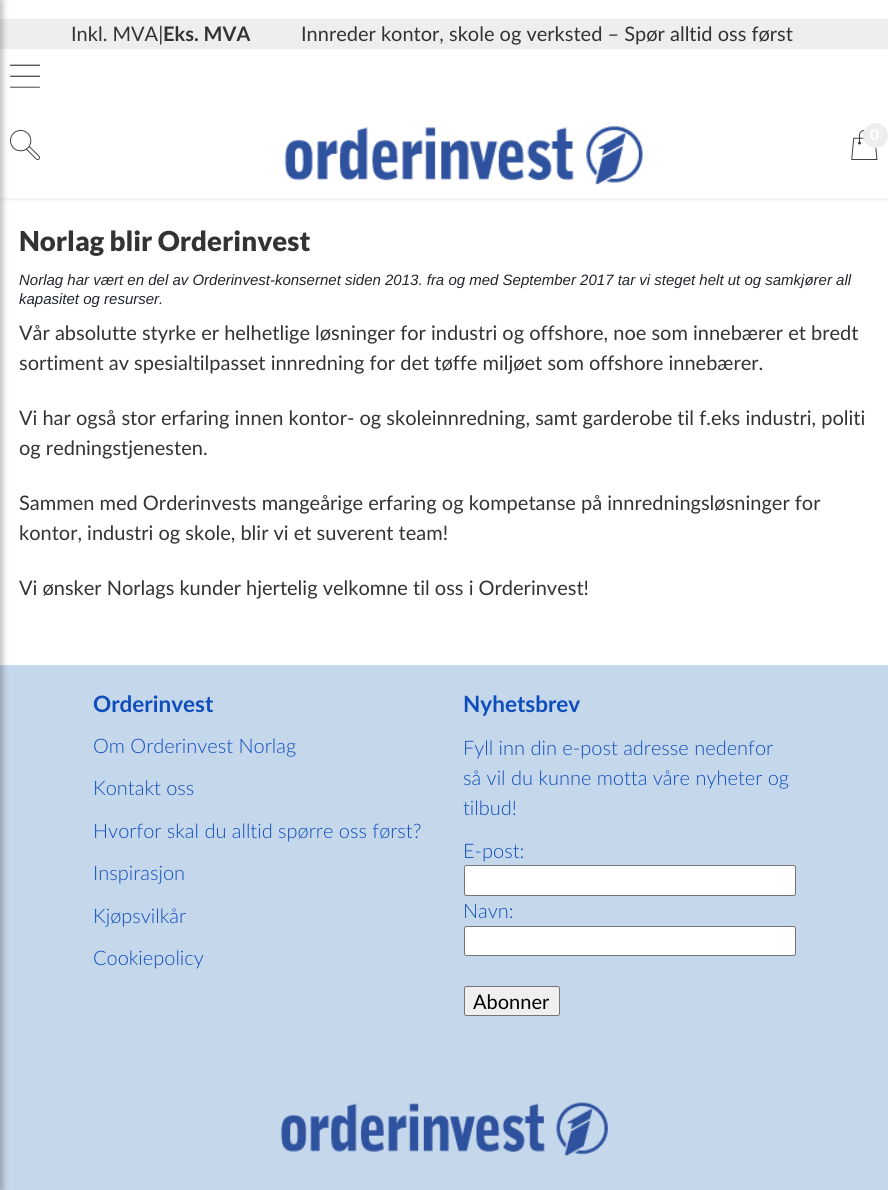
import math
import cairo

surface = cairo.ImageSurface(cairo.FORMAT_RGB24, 888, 1190)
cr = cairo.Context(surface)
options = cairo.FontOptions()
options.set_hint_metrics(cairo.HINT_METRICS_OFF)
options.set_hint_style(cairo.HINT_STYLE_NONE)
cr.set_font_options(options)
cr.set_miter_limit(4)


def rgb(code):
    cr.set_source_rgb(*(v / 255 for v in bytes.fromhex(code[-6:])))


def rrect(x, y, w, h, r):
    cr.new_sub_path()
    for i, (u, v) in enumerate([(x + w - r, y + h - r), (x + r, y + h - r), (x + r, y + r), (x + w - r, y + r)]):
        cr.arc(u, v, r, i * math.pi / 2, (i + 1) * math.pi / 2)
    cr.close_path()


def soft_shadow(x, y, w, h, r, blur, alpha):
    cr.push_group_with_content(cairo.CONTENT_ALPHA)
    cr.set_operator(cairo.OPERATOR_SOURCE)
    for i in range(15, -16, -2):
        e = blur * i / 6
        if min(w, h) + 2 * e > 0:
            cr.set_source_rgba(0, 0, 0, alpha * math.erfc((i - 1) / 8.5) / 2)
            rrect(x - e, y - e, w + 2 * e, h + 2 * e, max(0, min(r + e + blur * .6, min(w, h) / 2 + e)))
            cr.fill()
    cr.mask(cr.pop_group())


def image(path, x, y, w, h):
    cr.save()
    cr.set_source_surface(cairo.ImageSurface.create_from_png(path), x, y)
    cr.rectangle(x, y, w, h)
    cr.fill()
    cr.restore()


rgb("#ffffff")
cr.paint()
rgb("#000000")
soft_shadow(1, 1, 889, 198, 0, 2, 0.1)
rgb("#ffffff")
cr.rectangle(0, 0, 888, 198)
cr.fill()
image("img/1.png", 10, 64, 30, 24)
rgb("#eeeeee")
cr.rectangle(0, 19, 888, 30)
cr.fill()
image("img/2.png", 10, 130, 30, 30)
rgb("#c5d7eb")
cr.rectangle(0, 665, 888, 525)
cr.fill()
rgb("#000000")
soft_shadow(-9, 0, 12, 1190, 0, 3, 0.25)
image("img/3.png", 284, 126, 359, 59)
image("img/4.png", 851, 130, 27, 30)
rgb("#eeeeee")
cr.arc(875.5, 135.5, 12.5, 0, 2 * math.pi)
cr.fill()
rgb("#ffffff")
rrect(464.5, 865.5, 331, 30, 2)
cr.fill_preserve()
rgb("#767676")
cr.set_line_width(1)
cr.stroke()
rgb("#ffffff")
rrect(464.5, 926.5, 331, 29, 2)
cr.fill_preserve()
rgb("#767676")
cr.stroke()
rgb("#efefef")
rrect(464.5, 986.5, 95, 29, 2)
cr.fill_preserve()
rgb("#767676")
cr.stroke()
image("img/5.png", 280, 1102, 328, 55)
cr.select_font_face("Lato")
cr.set_font_size(20)
rgb("#333333")
cr.move_to(71, 41)
cr.show_text("Inkl. MVA|")
cr.select_font_face("Lato", cairo.FONT_SLANT_NORMAL, cairo.FONT_WEIGHT_BOLD)
cr.move_to(163, 41)
cr.show_text("Eks. MVA")
cr.select_font_face("Lato")
cr.move_to(301, 41)
cr.show_text("Innreder kontor, skole og verksted – Spør alltid oss først")
cr.select_font_face("Lato", cairo.FONT_SLANT_NORMAL, cairo.FONT_WEIGHT_BOLD)
cr.set_font_size(15)
rgb("#ffffff")
cr.move_to(870, 140)
cr.show_text("0")
cr.select_font_face("Lato Black")
cr.set_font_size(27.5)
rgb("#333333")
cr.move_to(19, 251)
cr.show_text("Norlag blir Orderinvest")
cr.select_font_face("Liberation Sans", cairo.FONT_SLANT_ITALIC)
cr.set_font_size(15)
rgb("#1f252c")
cr.move_to(19, 285)
cr.show_text("Norlag har vært en del av Orderinvest-konsernet siden 2013. fra og med September 2017 tar vi steget helt ut og samkjører all")
cr.move_to(19, 304)
cr.show_text("kapasitet og resurser.")
cr.select_font_face("Lato")
cr.set_font_size(20)
rgb("#333333")
for x, y, s in [
    (19, 340, "Vår absolutte styrke er helhetlige løsninger for industri og offshore, noe som innebærer et bredt"),
    (19, 370, "sortiment av spesialtilpasset innredning for det tøffe miljøet som offshore innebærer."),
    (19, 425, "Vi har også stor erfaring innen kontor- og skoleinnredning, samt garderobe til f.eks industri, politi"),
    (19, 455, "og redningstjenesten."),
    (19, 510, "Sammen med Orderinvests mangeårige erfaring og kompetanse på innredningsløsninger for"),
    (19, 540, "kontor, industri og skole, blir vi et suverent team!"),
    (19, 595, "Vi ønsker Norlags kunder hjertelig velkomne til oss i Orderinvest!"),
]:
    cr.move_to(x, y)
    cr.show_text(s)
cr.select_font_face("Lato", cairo.FONT_SLANT_NORMAL, cairo.FONT_WEIGHT_BOLD)
cr.set_font_size(22.5)
rgb("#0f4dbc")
cr.move_to(93, 712)
cr.show_text("Orderinvest")
cr.select_font_face("Lato Light")
cr.set_font_size(20)
for x, y, s in [
    (93, 753, "Om Orderinvest Norlag"),
    (93, 795, "Kontakt oss"),
    (93, 838, "Hvorfor skal du alltid spørre oss først?"),
    (93, 880, "Inspirasjon"),
    (93, 923, "Kjøpsvilkår"),
    (93, 965, "Cookiepolicy"),
]:
    cr.move_to(x, y)
    cr.show_text(s)
cr.select_font_face("Lato", cairo.FONT_SLANT_NORMAL, cairo.FONT_WEIGHT_BOLD)
cr.set_font_size(22.5)
cr.move_to(463, 712)
cr.show_text("Nyhetsbrev")
cr.select_font_face("Lato Light")
cr.set_font_size(20)
for x, y, s in [
    (463, 755, "Fyll inn din e-post adresse nedenfor"),
    (463, 785, "så vil du kunne motta våre nyheter og"),
    (463, 815, "tilbud!"),
    (463, 858, "E-post:"),
    (463, 918, "Navn:"),
]:
    cr.move_to(x, y)
    cr.show_text(s)
cr.select_font_face("Lato")
rgb("#000000")
cr.move_to(473, 1009)
cr.show_text("Abonner")
surface.write_to_png("page.png")
